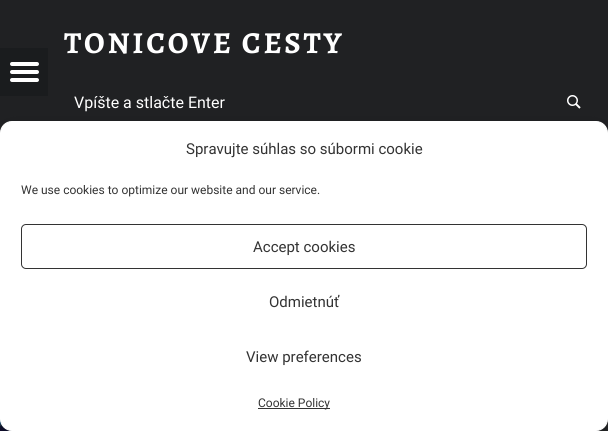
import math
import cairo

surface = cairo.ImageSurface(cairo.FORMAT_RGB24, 608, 431)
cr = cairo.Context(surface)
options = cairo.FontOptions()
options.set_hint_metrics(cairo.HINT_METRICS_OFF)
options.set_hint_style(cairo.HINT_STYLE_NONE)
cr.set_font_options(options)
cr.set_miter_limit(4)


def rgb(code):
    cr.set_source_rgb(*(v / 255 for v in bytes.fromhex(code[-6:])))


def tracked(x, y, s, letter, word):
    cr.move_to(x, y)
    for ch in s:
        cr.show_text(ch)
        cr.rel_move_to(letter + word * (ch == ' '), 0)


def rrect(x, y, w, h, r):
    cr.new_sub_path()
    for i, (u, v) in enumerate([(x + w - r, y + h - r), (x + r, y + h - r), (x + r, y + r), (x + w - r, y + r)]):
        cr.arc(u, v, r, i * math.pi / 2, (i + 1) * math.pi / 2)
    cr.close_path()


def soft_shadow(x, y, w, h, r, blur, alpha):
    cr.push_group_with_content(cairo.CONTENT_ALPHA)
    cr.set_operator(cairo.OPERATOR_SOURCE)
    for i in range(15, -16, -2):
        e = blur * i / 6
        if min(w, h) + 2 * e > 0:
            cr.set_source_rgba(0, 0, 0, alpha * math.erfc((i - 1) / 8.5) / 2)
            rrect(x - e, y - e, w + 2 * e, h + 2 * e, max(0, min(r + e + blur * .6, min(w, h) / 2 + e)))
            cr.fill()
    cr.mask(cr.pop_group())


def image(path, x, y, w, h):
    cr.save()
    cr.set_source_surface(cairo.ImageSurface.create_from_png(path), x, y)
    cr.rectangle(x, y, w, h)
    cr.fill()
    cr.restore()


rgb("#2a2c2e")
cr.paint()
rgb("#202123")
cr.rectangle(0, 0, 608, 133)
cr.fill()
rgb("#1a1c1e")
cr.rectangle(0, 48, 48, 48)
cr.fill()
rgb("#ffffff")
rrect(10, 62, 29, 4, 2)
cr.fill()
rrect(10, 70, 29, 4, 2)
cr.fill()
rrect(10, 78, 29, 4, 2)
cr.fill()
image("img/1.png", 567, 95, 14, 14)
image("img/2.png", 0, 419, 12, 12)
rgb("#000000")
soft_shadow(0, 127, 608, 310, 12, 3, 0.23)
soft_shadow(0, 131, 608, 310, 12, 10, 0.19)
rgb("#ffffff")
rrect(0.5, 121.5, 607, 309, 11.5)
cr.fill_preserve()
cr.set_line_width(1)
cr.stroke()
rrect(21.5, 224.5, 565, 44, 4.5)
rgb("#333333")
cr.stroke()
cr.rectangle(258, 408, 72, 1)
cr.fill()
cr.select_font_face("Alegreya", cairo.FONT_SLANT_NORMAL, cairo.FONT_WEIGHT_BOLD)
cr.set_font_size(30.5)
rgb("#ffffff")
tracked(64, 53, "TONICOVE CESTY", 2.75, 0)
cr.select_font_face("Roboto")
cr.set_font_size(16)
cr.move_to(74, 108)
cr.show_text("Vpíšte a stlačte Enter")
cr.set_font_size(15)
rgb("#333333")
cr.move_to(186, 154)
cr.show_text("Spravujte súhlas so súbormi cookie")
cr.set_font_size(12)
cr.move_to(21, 194)
cr.show_text("We use cookies to optimize our website and our service.")
cr.set_font_size(15)
for x, y, s in [
    (253, 252, "Accept cookies"),
    (269, 307, "Odmietnúť"),
    (246, 362, "View preferences"),
]:
    cr.move_to(x, y)
    cr.show_text(s)
cr.set_font_size(12)
cr.move_to(258, 407)
cr.show_text("Cookie Policy")
surface.write_to_png("page.png")
